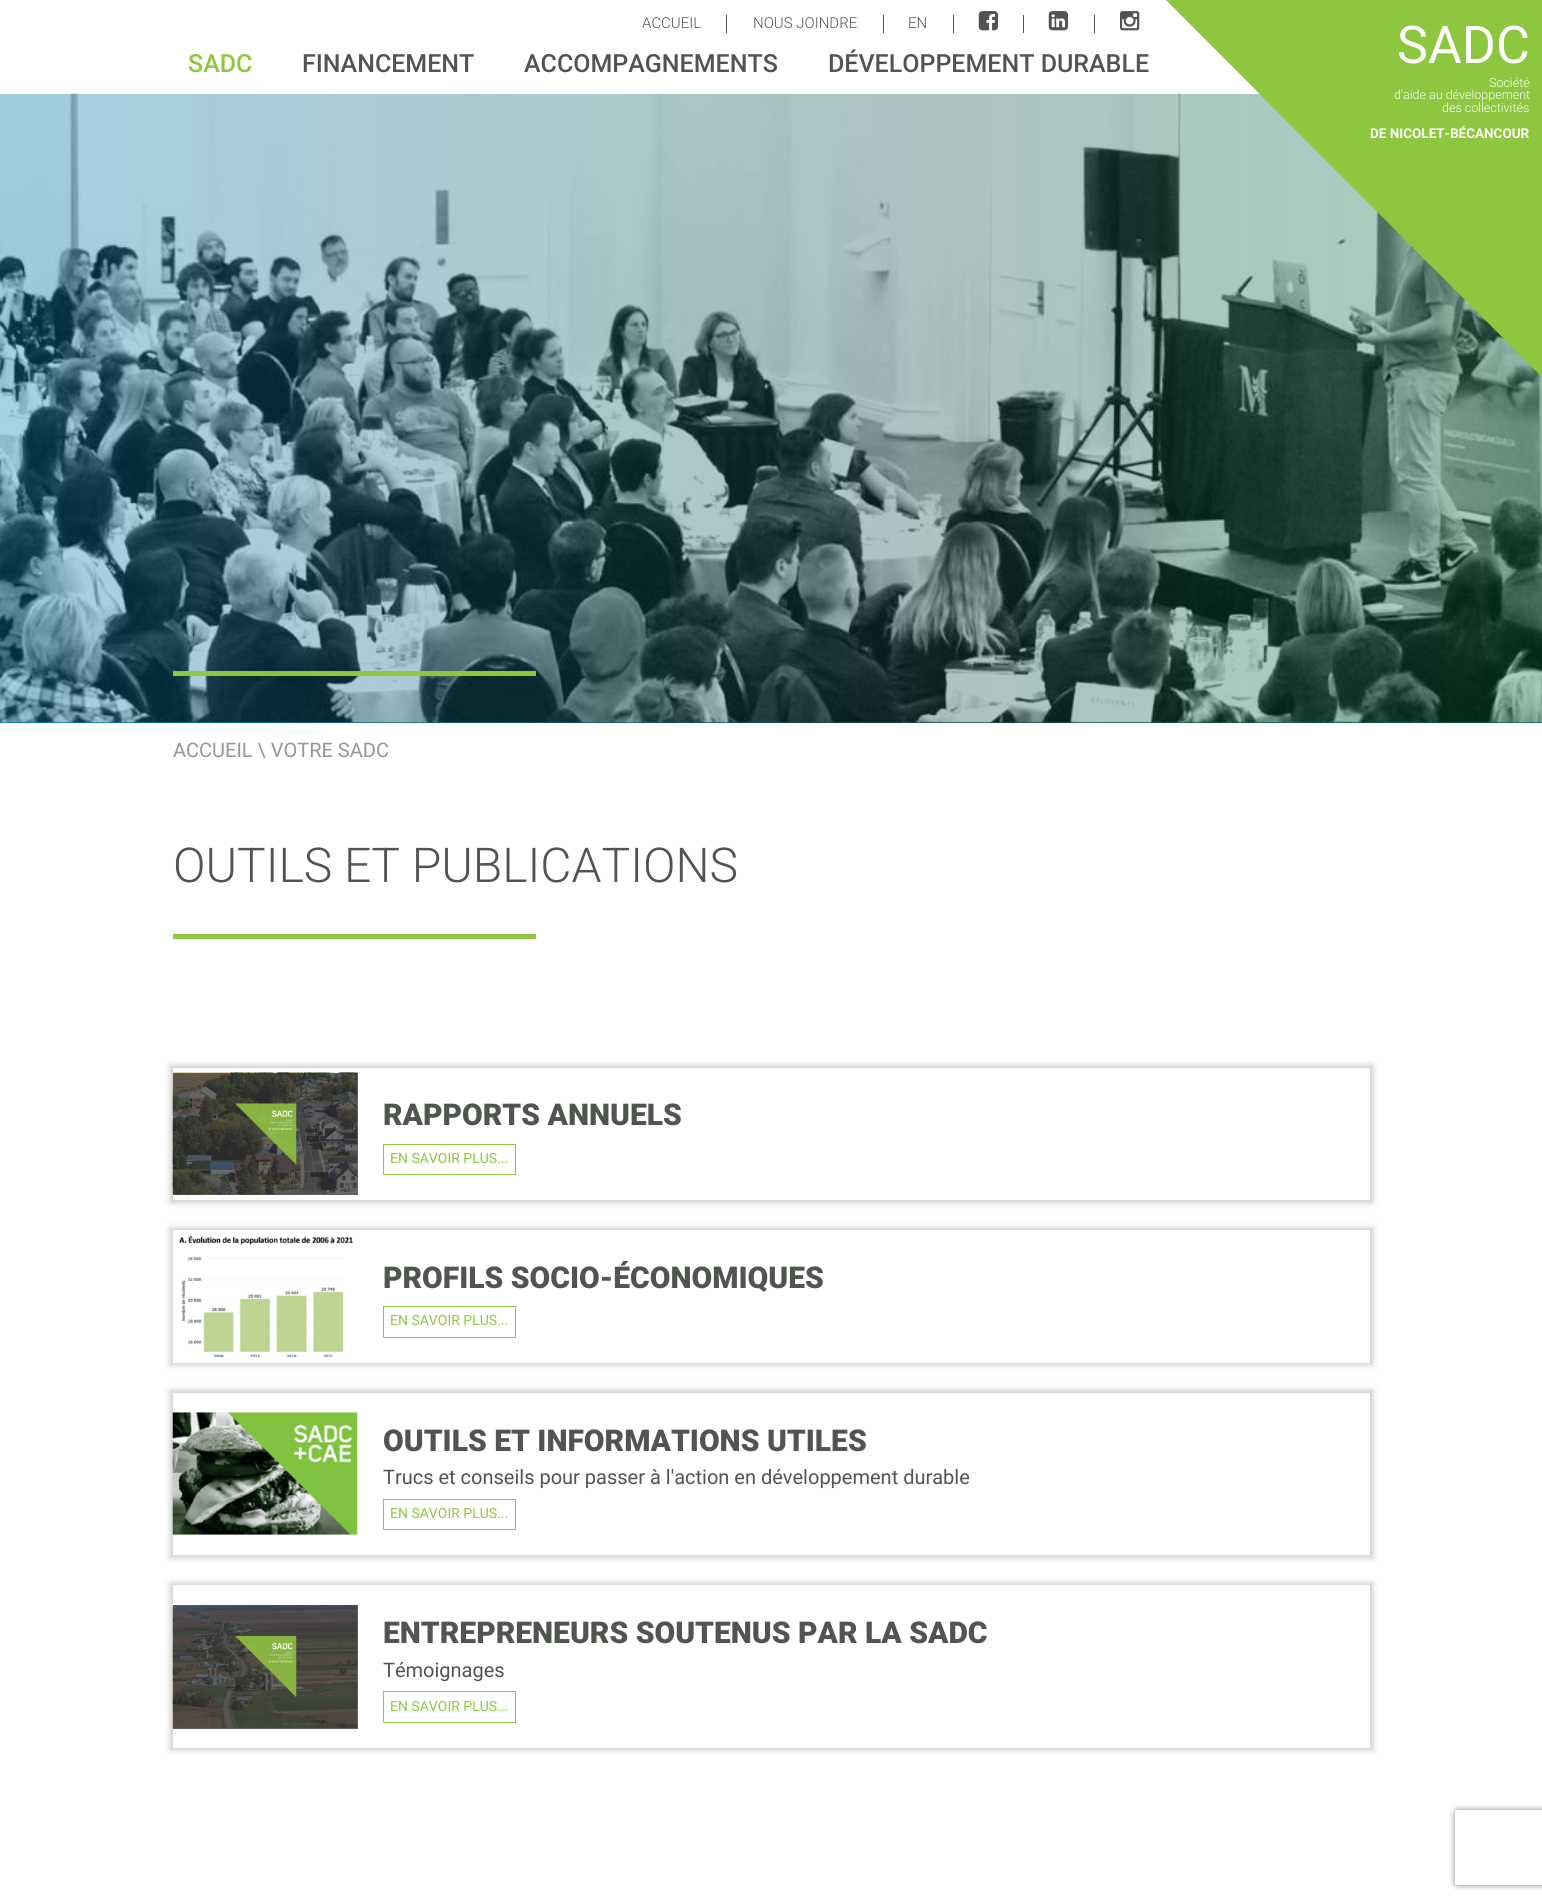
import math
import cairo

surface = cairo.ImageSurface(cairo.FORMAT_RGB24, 1542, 1902)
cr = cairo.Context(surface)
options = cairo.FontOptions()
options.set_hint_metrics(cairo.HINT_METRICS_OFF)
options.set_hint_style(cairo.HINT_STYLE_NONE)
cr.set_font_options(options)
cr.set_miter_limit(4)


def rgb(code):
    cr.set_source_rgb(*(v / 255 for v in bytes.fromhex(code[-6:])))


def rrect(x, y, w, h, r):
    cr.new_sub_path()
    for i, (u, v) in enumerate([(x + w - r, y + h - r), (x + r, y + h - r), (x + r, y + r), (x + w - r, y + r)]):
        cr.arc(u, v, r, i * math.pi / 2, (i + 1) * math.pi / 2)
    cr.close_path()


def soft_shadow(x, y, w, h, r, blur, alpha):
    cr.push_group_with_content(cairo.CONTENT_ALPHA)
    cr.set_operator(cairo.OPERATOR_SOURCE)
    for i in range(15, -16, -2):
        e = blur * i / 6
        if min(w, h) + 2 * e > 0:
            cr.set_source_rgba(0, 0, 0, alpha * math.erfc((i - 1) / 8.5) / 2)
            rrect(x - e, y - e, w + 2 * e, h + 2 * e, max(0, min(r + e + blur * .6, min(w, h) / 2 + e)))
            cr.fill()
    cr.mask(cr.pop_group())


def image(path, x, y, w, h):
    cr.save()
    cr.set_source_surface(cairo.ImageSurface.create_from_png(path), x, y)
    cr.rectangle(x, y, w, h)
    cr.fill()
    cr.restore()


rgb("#ffffff")
cr.paint()
for x, y, w, h, color in [
    (173, 1073, 185, 122, "#6a6a6a"),
    (726, 15, 1, 18, "#505550"),
    (883, 15, 1, 18, "#505550"),
    (953, 15, 1, 18, "#505550"),
    (1023, 15, 1, 18, "#505550"),
]:
    rgb(color)
    cr.rectangle(x, y, w, h)
    cr.fill()
image("img/1.png", 978, 11, 21, 20)
cr.rectangle(1094, 15, 1, 18)
cr.fill()
image("img/2.png", 1048, 11, 21, 20)
image("img/3.png", 1120, 11, 20, 20)
gradient = cairo.LinearGradient(0, 408, 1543, 408)
gradient.add_color_stop_rgba(0, 0, 0.494, 0.678, 1)
gradient.add_color_stop_rgba(0.6, 0.086, 0.318, 0.31, 1)
gradient.add_color_stop_rgba(1, 0, 0.455, 0.251, 1)
cr.set_source(gradient)
cr.rectangle(0, 94, 1542, 629)
cr.fill()
image("img/4.png", 0, 93, 1542, 630)
rgb("#8dc63f")
cr.new_path()
cr.move_to(1157, -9)
cr.line_to(1542, -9)
cr.line_to(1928, 377)
cr.line_to(1542, 377)
cr.close_path()
cr.fill()
cr.rectangle(173, 671, 363, 5)
cr.fill()
cr.rectangle(173, 934, 363, 5)
cr.fill()
cr.save()
cr.set_fill_rule(cairo.FILL_RULE_EVEN_ODD)
cr.new_path()
cr.move_to(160, 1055)
cr.line_to(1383, 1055)
cr.line_to(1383, 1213)
cr.line_to(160, 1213)
cr.close_path()
cr.move_to(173, 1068)
cr.line_to(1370, 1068)
cr.line_to(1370, 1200)
cr.line_to(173, 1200)
cr.close_path()
cr.clip()
rgb("#cdcdcd")
soft_shadow(170, 1065, 1203, 138, 0, 3, 1)
cr.restore()
image("img/5.png", 172, 1072, 186, 123)
image("img/6.png", 235, 1103, 62, 62)
cr.rectangle(383.5, 1144.5, 132, 30)
cr.set_line_width(1)
cr.stroke()
rgb("#cdcdcd")
soft_shadow(170, 1228, 1203, 137, 0, 3, 1)
rgb("#ffffff")
cr.rectangle(173, 1230, 1197, 133)
cr.fill()
image("img/7.png", 172, 1235, 181, 123)
cr.rectangle(383.5, 1306.5, 132, 31)
rgb("#8dc63f")
cr.stroke()
cr.save()
cr.set_fill_rule(cairo.FILL_RULE_EVEN_ODD)
cr.new_path()
cr.move_to(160, 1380)
cr.line_to(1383, 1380)
cr.line_to(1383, 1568)
cr.line_to(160, 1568)
cr.close_path()
cr.move_to(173, 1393)
cr.line_to(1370, 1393)
cr.line_to(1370, 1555)
cr.line_to(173, 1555)
cr.close_path()
cr.clip()
rgb("#cdcdcd")
soft_shadow(170, 1390, 1203, 168, 0, 3, 1)
cr.restore()
image("img/8.png", 172, 1412, 186, 123)
cr.rectangle(383.5, 1499.5, 132, 30)
cr.stroke()
rgb("#cdcdcd")
soft_shadow(170, 1583, 1203, 167, 0, 3, 1)
rgb("#ffffff")
cr.rectangle(173, 1585, 1197, 163)
cr.fill()
rgb("#6a6a6a")
cr.rectangle(173, 1605, 185, 124)
cr.fill()
image("img/9.png", 172, 1604, 186, 125)
image("img/10.png", 235, 1636, 62, 62)
cr.rectangle(383.5, 1691.5, 132, 31)
rgb("#8dc63f")
cr.stroke()
cr.save()
cr.set_fill_rule(cairo.FILL_RULE_EVEN_ODD)
cr.new_path()
cr.move_to(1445, 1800)
cr.line_to(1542, 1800)
cr.line_to(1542, 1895)
cr.line_to(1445, 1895)
cr.close_path()
cr.move_to(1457.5, 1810)
cr.line_to(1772.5, 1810)
cr.curve_to(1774, 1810, 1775, 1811, 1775, 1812.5)
cr.line_to(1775, 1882.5)
cr.curve_to(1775, 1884, 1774, 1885, 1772.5, 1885)
cr.line_to(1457.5, 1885)
cr.curve_to(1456, 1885, 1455, 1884, 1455, 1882.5)
cr.line_to(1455, 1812.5)
cr.curve_to(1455, 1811, 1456, 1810, 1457.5, 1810)
cr.close_path()
cr.clip()
rgb("#808080")
soft_shadow(1455, 1810, 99, 75, 2.5, 3, 1)
cr.restore()
cr.select_font_face("Roboto Light")
cr.set_font_size(15)
rgb("#505550")
for x, y, s in [
    (642, 28, "ACCUEIL"),
    (753, 28, "NOUS JOINDRE"),
    (908, 28, "EN"),
]:
    cr.move_to(x, y)
    cr.show_text(s)
cr.select_font_face("Roboto Medium")
cr.set_font_size(25)
rgb("#8dc63f")
cr.move_to(188, 72)
cr.show_text("SADC")
rgb("#505550")
for x, y, s in [
    (302, 72, "FINANCEMENT"),
    (524, 72, "ACCOMPAGNEMENTS"),
    (828, 72, "DÉVELOPPEMENT DURABLE"),
]:
    cr.move_to(x, y)
    cr.show_text(s)
cr.select_font_face("Roboto")
cr.set_font_size(52)
rgb("#ffffff")
cr.move_to(1397, 63)
cr.show_text("SADC")
cr.select_font_face("Roboto Light")
cr.set_font_size(12.5)
for x, y, s in [
    (1489, 87, "Société"),
    (1394, 99, "d'aide au développement"),
    (1442, 112, "des collectivités"),
]:
    cr.move_to(x, y)
    cr.show_text(s)
cr.select_font_face("Roboto", cairo.FONT_SLANT_NORMAL, cairo.FONT_WEIGHT_BOLD)
cr.set_font_size(13.5)
cr.move_to(1370, 138)
cr.show_text("DE NICOLET-BÉCANCOUR")
cr.select_font_face("Roboto")
cr.set_font_size(20)
rgb("#969696")
cr.move_to(173, 757)
cr.show_text("ACCUEIL \\ VOTRE SADC")
cr.select_font_face("Roboto Light")
cr.set_font_size(48)
rgb("#505550")
cr.move_to(173, 882)
cr.show_text("OUTILS ET PUBLICATIONS")
cr.select_font_face("Roboto Black")
cr.set_font_size(30)
cr.move_to(383, 1125)
cr.show_text("RAPPORTS ANNUELS")
cr.select_font_face("Roboto")
cr.set_font_size(14)
rgb("#8dc63f")
cr.move_to(390, 1163)
cr.show_text("EN SAVOIR PLUS...")
cr.select_font_face("Roboto Black")
cr.set_font_size(30)
rgb("#505550")
cr.move_to(383, 1288)
cr.show_text("PROFILS SOCIO-ÉCONOMIQUES")
cr.select_font_face("Roboto")
cr.set_font_size(14)
rgb("#8dc63f")
cr.move_to(390, 1325)
cr.show_text("EN SAVOIR PLUS...")
cr.select_font_face("Roboto Black")
cr.set_font_size(30)
rgb("#505550")
cr.move_to(383, 1451)
cr.show_text("OUTILS ET INFORMATIONS UTILES")
cr.select_font_face("Roboto")
cr.set_font_size(20)
cr.move_to(383, 1484)
cr.show_text("Trucs et conseils pour passer à l'action en développement durable")
cr.set_font_size(14)
rgb("#8dc63f")
cr.move_to(390, 1518)
cr.show_text("EN SAVOIR PLUS...")
cr.select_font_face("Roboto Black")
cr.set_font_size(30)
rgb("#505550")
cr.move_to(383, 1643)
cr.show_text("ENTREPRENEURS SOUTENUS PAR LA SADC")
cr.select_font_face("Roboto")
cr.set_font_size(20)
cr.move_to(383, 1677)
cr.show_text("Témoignages")
cr.set_font_size(14)
rgb("#8dc63f")
cr.move_to(390, 1711)
cr.show_text("EN SAVOIR PLUS...")
surface.write_to_png("page.png")
